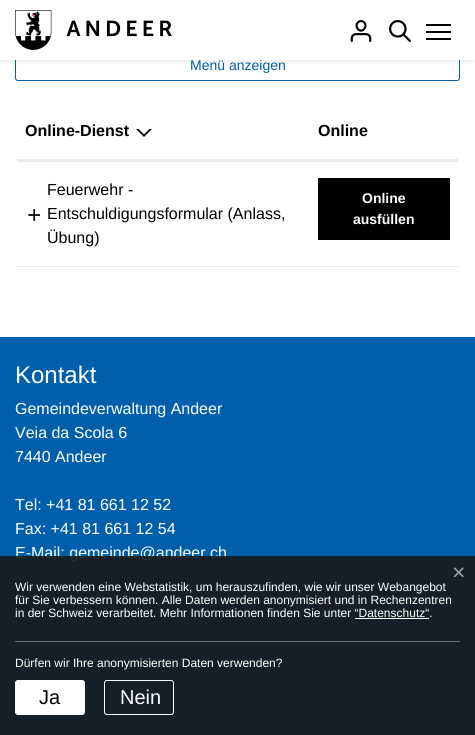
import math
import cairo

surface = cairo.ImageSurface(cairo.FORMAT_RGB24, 475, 735)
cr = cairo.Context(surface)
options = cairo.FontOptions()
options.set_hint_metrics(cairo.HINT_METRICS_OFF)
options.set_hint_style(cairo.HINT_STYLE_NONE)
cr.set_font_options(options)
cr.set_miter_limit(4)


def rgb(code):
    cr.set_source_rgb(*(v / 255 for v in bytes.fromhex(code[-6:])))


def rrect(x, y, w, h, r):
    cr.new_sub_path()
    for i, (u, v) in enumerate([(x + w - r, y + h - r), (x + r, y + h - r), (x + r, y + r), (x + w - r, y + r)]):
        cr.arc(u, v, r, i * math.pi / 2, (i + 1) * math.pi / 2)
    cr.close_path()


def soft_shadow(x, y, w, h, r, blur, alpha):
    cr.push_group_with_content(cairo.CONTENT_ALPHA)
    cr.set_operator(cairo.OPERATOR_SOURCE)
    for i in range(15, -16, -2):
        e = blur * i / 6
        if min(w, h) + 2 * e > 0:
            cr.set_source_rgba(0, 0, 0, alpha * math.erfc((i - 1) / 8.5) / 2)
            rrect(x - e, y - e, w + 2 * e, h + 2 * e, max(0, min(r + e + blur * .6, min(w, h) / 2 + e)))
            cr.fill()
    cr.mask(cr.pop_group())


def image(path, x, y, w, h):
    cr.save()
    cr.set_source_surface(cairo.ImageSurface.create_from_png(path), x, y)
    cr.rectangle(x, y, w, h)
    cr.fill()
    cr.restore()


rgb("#ffffff")
cr.paint()
rrect(15.5, 50.5, 444, 30, 2.5)
rgb("#005fab")
cr.set_line_width(1)
cr.stroke()
rgb("#000000")
soft_shadow(0, 2, 475, 60, 0, 2, 0.07)
rgb("#e6ecee")
cr.rectangle(17, 266, 441, 1)
cr.fill()
cr.rectangle(17, 159, 293, 3)
cr.fill()
image("img/4.png", 136, 129, 16, 8)
for x, y, w, h, color in [
    (310, 159, 148, 3, "#e6ecee"),
    (318, 178, 132, 62, "#000000"),
    (0, 337, 475, 398, "#005fab"),
]:
    rgb(color)
    cr.rectangle(x, y, w, h)
    cr.fill()
cr.select_font_face("Arimo")
cr.set_font_size(14)
cr.move_to(190, 70)
cr.show_text("Menü anzeigen")
for x, y, w, h, color in [
    (0, 0, 475, 60, "#ffffff"),
    (426, 38, 25, 2, "#000000"),
    (426, 31, 25, 2, "#000000"),
    (426, 24, 25, 2, "#000000"),
]:
    rgb(color)
    cr.rectangle(x, y, w, h)
    cr.fill()
image("img/1.png", 15, 10, 157, 40)
image("img/3.png", 389, 20, 22, 22)
image("img/2.png", 350, 20, 22, 22)
cr.select_font_face("Arimo", cairo.FONT_SLANT_NORMAL, cairo.FONT_WEIGHT_BOLD)
cr.set_font_size(16)
cr.move_to(25, 136)
cr.show_text("Online-Dienst")
cr.move_to(318, 136)
cr.show_text("Online")
cr.select_font_face("Arimo")
cr.move_to(47, 195)
cr.show_text("Feuerwehr -")
cr.select_font_face("Liberation Mono")
cr.set_font_size(24)
cr.move_to(27, 223)
cr.show_text("+")
cr.select_font_face("Arimo")
cr.set_font_size(16)
cr.move_to(47, 219)
cr.show_text("Entschuldigungsformular (Anlass,")
cr.move_to(47, 243)
cr.show_text("Übung)")
cr.select_font_face("Arimo", cairo.FONT_SLANT_NORMAL, cairo.FONT_WEIGHT_BOLD)
cr.set_font_size(14)
rgb("#ffffff")
cr.move_to(362, 203)
cr.show_text("Online")
cr.move_to(353, 224)
cr.show_text("ausfüllen")
cr.select_font_face("Arimo")
cr.set_font_size(24)
cr.move_to(15, 383)
cr.show_text("Kontakt")
cr.set_font_size(16)
for x, y, s in [
    (15, 414, "Gemeindeverwaltung Andeer"),
    (15, 438, "Veia da Scola 6"),
    (15, 462, "7440 Andeer"),
    (15, 510, "Tel: +41 81 661 12 52"),
    (15, 534, "Fax: +41 81 661 12 54"),
    (15, 558, "E-Mail: gemeinde@andeer.ch"),
]:
    cr.move_to(x, y)
    cr.show_text(s)
cr.set_source_rgba(0.098, 0.098, 0.098, 0.9)
cr.rectangle(0, 556, 475, 179)
cr.fill()
cr.select_font_face("Liberation Sans")
cr.set_font_size(23)
rgb("#a2a2a2")
cr.move_to(452, 580)
cr.show_text("×")
rgb("#6d6d6d")
cr.rectangle(15, 641, 445, 1)
cr.fill()
cr.select_font_face("Arimo")
cr.set_font_size(12)
rgb("#ffffff")
for x, y, s in [
    (15, 591, "Wir verwenden eine Webstatistik, um herauszufinden, wie wir unser Webangebot"),
    (15, 604, "für Sie verbessern können. Alle Daten werden anonymisiert und in Rechenzentren"),
    (15, 617, "in der Schweiz verarbeitet. Mehr Informationen finden Sie unter “Datenschutz“."),
]:
    cr.move_to(x, y)
    cr.show_text(s)
cr.rectangle(355, 618, 74, 1)
cr.fill()
cr.move_to(15, 667)
cr.show_text("Dürfen wir Ihre anonymisierten Daten verwenden?")
rrect(15.5, 680.5, 69, 34, 2.5)
cr.fill_preserve()
cr.stroke()
cr.set_font_size(20)
rgb("#000000")
cr.move_to(39, 704)
cr.show_text("Ja")
rrect(104.5, 680.5, 69, 34, 2.5)
rgb("#ffffff")
cr.stroke()
cr.move_to(120, 704)
cr.show_text("Nein")
surface.write_to_png("page.png")
